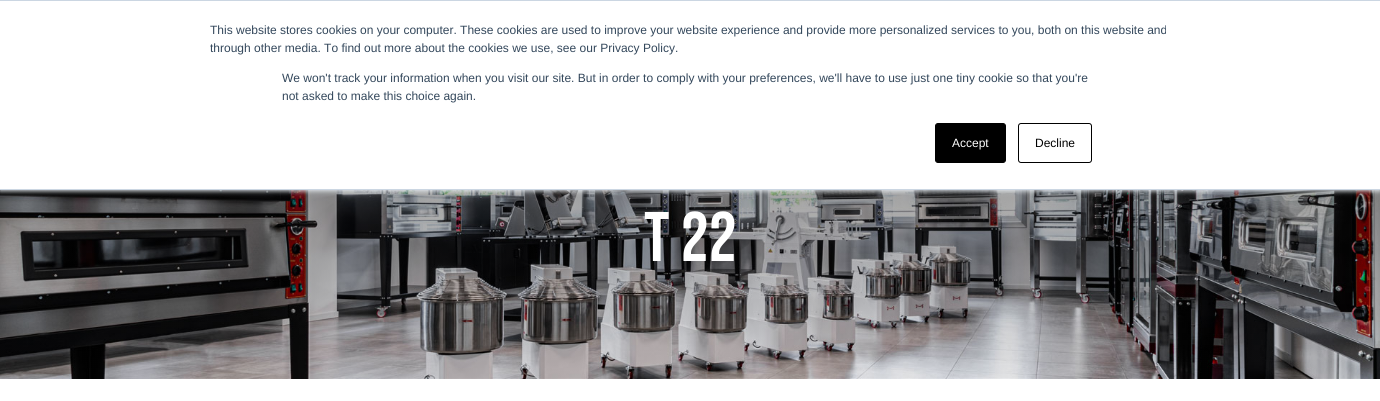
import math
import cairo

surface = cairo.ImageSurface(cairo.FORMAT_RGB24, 1380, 401)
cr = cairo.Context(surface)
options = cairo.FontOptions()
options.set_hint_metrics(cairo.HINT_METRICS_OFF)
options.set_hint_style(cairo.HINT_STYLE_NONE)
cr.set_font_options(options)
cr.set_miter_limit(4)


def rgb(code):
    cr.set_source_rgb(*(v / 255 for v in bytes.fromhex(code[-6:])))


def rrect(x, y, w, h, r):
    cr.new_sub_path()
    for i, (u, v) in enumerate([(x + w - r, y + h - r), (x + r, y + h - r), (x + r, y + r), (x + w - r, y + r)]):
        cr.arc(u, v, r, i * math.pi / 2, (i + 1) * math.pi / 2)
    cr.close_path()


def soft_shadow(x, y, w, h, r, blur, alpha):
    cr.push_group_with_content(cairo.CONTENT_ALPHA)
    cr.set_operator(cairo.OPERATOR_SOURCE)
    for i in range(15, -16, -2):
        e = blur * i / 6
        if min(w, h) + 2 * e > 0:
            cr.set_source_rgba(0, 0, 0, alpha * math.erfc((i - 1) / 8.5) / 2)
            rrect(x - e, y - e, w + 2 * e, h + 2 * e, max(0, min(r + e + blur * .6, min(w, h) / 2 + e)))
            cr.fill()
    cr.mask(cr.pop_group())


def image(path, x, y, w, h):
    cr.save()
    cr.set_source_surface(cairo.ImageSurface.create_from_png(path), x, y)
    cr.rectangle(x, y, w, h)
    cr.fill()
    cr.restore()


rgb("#ffffff")
cr.paint()
image("img/1.png", 0, 190, 1380, 189)
rgb("#eaf0f6")
soft_shadow(0, 1, 1380, 190, 0, 2.5, 1)
for x, y, w, h, color in [
    (0, 1, 1380, 188, "#ffffff"),
    (0, 0, 1380, 1, "#cbd6e2"),
    (0, 189, 1380, 1, "#cbd6e2"),
]:
    rgb(color)
    cr.rectangle(x, y, w, h)
    cr.fill()
rgb("#000000")
rrect(935.5, 123.5, 70, 39, 2.5)
cr.fill_preserve()
cr.set_line_width(1)
cr.stroke()
rrect(1018.5, 123.5, 73, 39, 2.5)
cr.stroke()
cr.select_font_face("Liberation Sans")
cr.set_font_size(12)
rgb("#33475b")
for x, y, s in [
    (210, 34, "This website stores cookies on your computer. These cookies are used to improve your website experience and provide more personalized services to you, both on this website and"),
    (210, 52, "through other media. To find out more about the cookies we use, see our Privacy Policy."),
    (282, 82, "We won't track your information when you visit our site. But in order to comply with your preferences, we'll have to use just one tiny cookie so that you're"),
    (282, 100, "not asked to make this choice again."),
]:
    cr.move_to(x, y)
    cr.show_text(s)
rgb("#ffffff")
cr.move_to(952, 147)
cr.show_text("Accept")
rgb("#000000")
cr.move_to(1035, 147)
cr.show_text("Decline")
cr.select_font_face("Bebas Neue")
cr.set_font_size(70)
rgb("#ffffff")
cr.move_to(644, 261)
cr.show_text("T 22")
surface.write_to_png("page.png")
